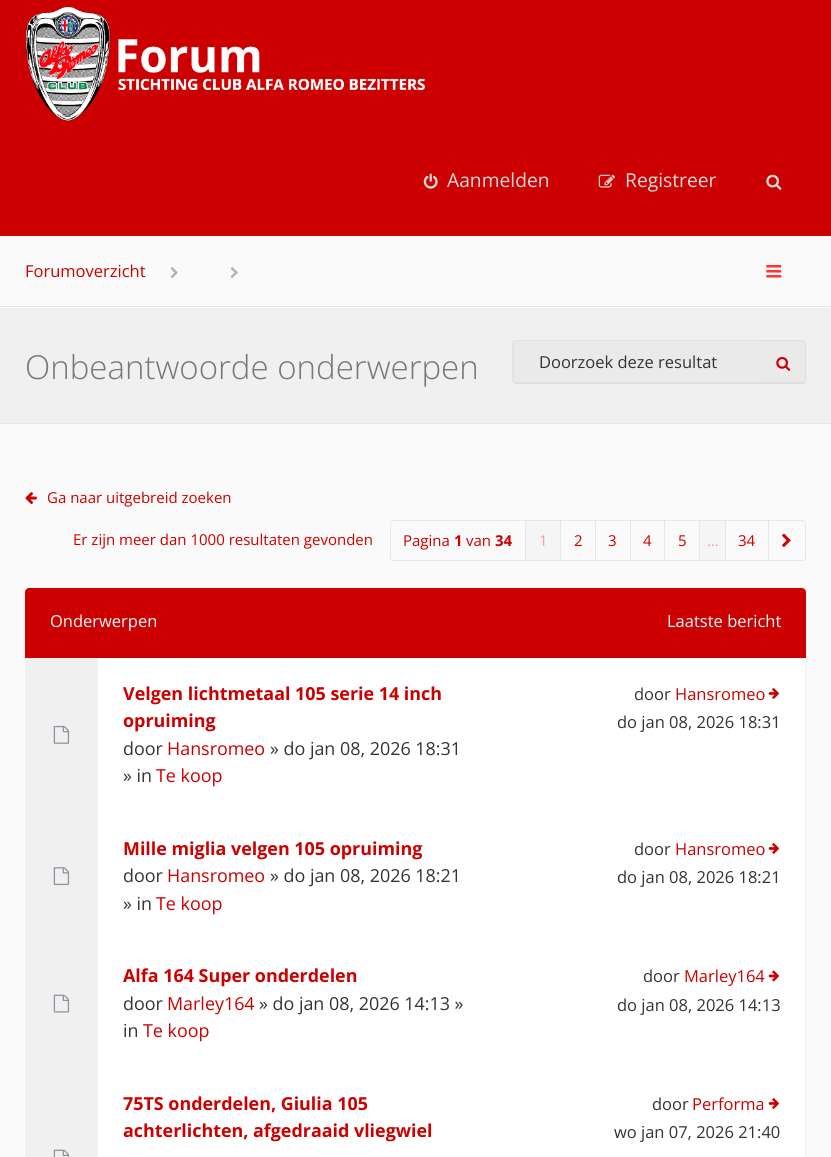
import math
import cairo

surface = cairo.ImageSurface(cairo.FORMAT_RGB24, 831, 1157)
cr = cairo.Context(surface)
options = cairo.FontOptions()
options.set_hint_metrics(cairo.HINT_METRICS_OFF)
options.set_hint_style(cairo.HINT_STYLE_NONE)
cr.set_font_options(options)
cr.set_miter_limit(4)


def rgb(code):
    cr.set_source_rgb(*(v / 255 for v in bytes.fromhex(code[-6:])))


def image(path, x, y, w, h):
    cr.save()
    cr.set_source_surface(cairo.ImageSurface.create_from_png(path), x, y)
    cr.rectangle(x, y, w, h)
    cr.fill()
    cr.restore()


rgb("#fafafa")
cr.paint()
rgb("#cc0000")
cr.rectangle(0, 0, 831, 236)
cr.fill()
image("img/1.png", 25, 6, 400, 116)
image("img/2.png", 423, 173, 15, 16)
image("img/3.png", 598, 174, 17, 14)
image("img/4.png", 766, 174, 16, 16)
image("img/5.png", 170, 267, 8, 12)
image("img/5.png", 230, 267, 8, 12)
image("img/6.png", 766, 265, 16, 13)
for x, y, w, h, color in [
    (0, 308, 831, 115, "#f0f0f0"),
    (0, 306, 831, 1, "#e6e6e6"),
    (0, 423, 831, 1, "#e6e6e6"),
]:
    rgb(color)
    cr.rectangle(x, y, w, h)
    cr.fill()
rgb("#eaeaea")
cr.new_path()
cr.move_to(517, 340)
cr.line_to(763, 340)
cr.line_to(763, 384)
cr.line_to(517, 384)
cr.curve_to(515, 384, 513, 382, 513, 380)
cr.line_to(513, 344)
cr.curve_to(513, 342, 515, 340, 517, 340)
cr.close_path()
cr.fill()
cr.set_source_rgba(0, 0, 0, 0.05)
cr.set_fill_rule(cairo.FILL_RULE_EVEN_ODD)
cr.new_path()
cr.move_to(516, 340)
cr.line_to(762, 340)
cr.line_to(762, 384)
cr.line_to(516, 384)
cr.curve_to(514, 384, 512, 382, 512, 380)
cr.line_to(512, 344)
cr.curve_to(512, 342, 514, 340, 516, 340)
cr.close_path()
cr.move_to(516, 341)
cr.line_to(762, 341)
cr.line_to(762, 382)
cr.line_to(516, 382)
cr.curve_to(515, 382, 514, 381, 514, 380)
cr.line_to(514, 344)
cr.curve_to(514, 342, 515, 341, 516, 341)
cr.close_path()
cr.fill()
rgb("#eaeaea")
cr.new_path()
cr.move_to(763, 340)
cr.line_to(802, 340)
cr.curve_to(804, 340, 806, 342, 806, 344)
cr.line_to(806, 380)
cr.curve_to(806, 382, 804, 384, 802, 384)
cr.line_to(763, 384)
cr.close_path()
cr.fill()
rgb("#dedede")
cr.new_path()
cr.move_to(762, 340)
cr.line_to(802, 340)
cr.curve_to(805, 340, 806, 342, 806, 344)
cr.line_to(806, 380)
cr.curve_to(806, 382, 805, 384, 802, 384)
cr.line_to(762, 384)
cr.close_path()
cr.move_to(762, 341)
cr.line_to(802, 341)
cr.curve_to(804, 341, 805, 342, 805, 344)
cr.line_to(805, 380)
cr.curve_to(805, 381, 804, 382, 802, 382)
cr.line_to(762, 382)
cr.close_path()
cr.fill()
image("img/7.png", 776, 357, 15, 14)
image("img/8.png", 25, 492, 12, 12)
cr.new_path()
cr.move_to(394, 520.5)
cr.line_to(525.5, 520.5)
cr.line_to(525.5, 560.5)
cr.line_to(394, 560.5)
cr.curve_to(392, 560.5, 390.5, 559, 390.5, 557)
cr.line_to(390.5, 524)
cr.curve_to(390.5, 522, 392, 520.5, 394, 520.5)
cr.close_path()
rgb("#e7e7e7")
cr.set_line_width(1)
cr.stroke()
for x, y, w, h, color in [
    (526, 521, 34, 39, "#f5f5f5"),
    (526, 520, 243, 1, "#e7e7e7"),
    (560, 520, 1, 41, "#e7e7e7"),
    (526, 560, 35, 1, "#e7e7e7"),
    (595, 520, 1, 41, "#e7e7e7"),
    (561, 560, 35, 1, "#e7e7e7"),
    (630, 520, 1, 41, "#e7e7e7"),
    (596, 560, 35, 1, "#e7e7e7"),
    (664, 520, 1, 41, "#e7e7e7"),
    (631, 560, 34, 1, "#e7e7e7"),
    (699, 520, 1, 41, "#e7e7e7"),
    (665, 560, 35, 1, "#e7e7e7"),
    (700, 521, 25, 39, "#f5f5f5"),
    (725, 520, 1, 41, "#e7e7e7"),
    (700, 560, 26, 1, "#e7e7e7"),
    (768, 520, 1, 41, "#e7e7e7"),
    (726, 560, 43, 1, "#e7e7e7"),
]:
    rgb(color)
    cr.rectangle(x, y, w, h)
    cr.fill()
cr.new_path()
cr.move_to(769, 520)
cr.line_to(802, 520)
cr.curve_to(805, 520, 806, 522, 806, 524)
cr.line_to(806, 558)
cr.curve_to(806, 560, 805, 561, 802, 561)
cr.line_to(769, 561)
cr.close_path()
cr.move_to(769, 521)
cr.line_to(802, 521)
cr.curve_to(804, 521, 805, 522, 805, 524)
cr.line_to(805, 558)
cr.curve_to(805, 559, 804, 560, 802, 560)
cr.line_to(769, 560)
cr.close_path()
cr.fill()
image("img/9.png", 782, 533, 9, 14)
rgb("#cc0000")
cr.new_path()
cr.move_to(29, 588)
cr.line_to(802, 588)
cr.curve_to(804, 588, 806, 590, 806, 592)
cr.line_to(806, 658)
cr.line_to(25, 658)
cr.line_to(25, 592)
cr.curve_to(25, 590, 27, 588, 29, 588)
cr.close_path()
cr.fill()
for x, y, w, h, color in [
    (98, 658, 707, 499, "#ffffff"),
    (805, 658, 1, 499, "#f0f0f0"),
    (25, 658, 1, 499, "#f0f0f0"),
    (26, 658, 72, 499, "#f0f0f0"),
]:
    rgb(color)
    cr.rectangle(x, y, w, h)
    cr.fill()
image("img/10.png", 53, 725, 17, 19)
image("img/11.png", 768, 688, 11, 11)
image("img/12.png", 53, 867, 17, 19)
image("img/11.png", 768, 843, 11, 11)
image("img/13.png", 53, 994, 17, 19)
image("img/14.png", 768, 970, 11, 12)
image("img/15.png", 53, 1149, 17, 8)
image("img/11.png", 768, 1098, 11, 11)
cr.select_font_face("Open Sans")
cr.set_font_size(19.25)
rgb("#dcdcdc")
cr.move_to(447, 187)
cr.show_text("Aanmelden")
cr.move_to(625, 187)
cr.show_text("Registreer")
cr.set_font_size(16.5)
rgb("#cc0000")
cr.move_to(25, 277)
cr.show_text("Forumoverzicht")
cr.select_font_face("Open Sans Light")
cr.set_font_size(33)
rgb("#777777")
cr.move_to(25, 379)
cr.show_text("Onbeantwoorde onderwerpen")
cr.select_font_face("Open Sans")
cr.set_font_size(16.5)
rgb("#333333")
cr.move_to(539, 368)
cr.show_text("Doorzoek deze resultat")
cr.set_font_size(15)
rgb("#cc0000")
for x, y, s in [
    (47, 503, "Ga naar uitgebreid zoeken"),
    (73, 545, "Er zijn meer dan 1000 resultaten gevonden"),
    (403, 546, "Pagina"),
]:
    cr.move_to(x, y)
    cr.show_text(s)
cr.select_font_face("Open Sans", cairo.FONT_SLANT_NORMAL, cairo.FONT_WEIGHT_BOLD)
cr.move_to(454, 546)
cr.show_text("1")
cr.select_font_face("Open Sans")
cr.move_to(466, 546)
cr.show_text("van")
cr.select_font_face("Open Sans", cairo.FONT_SLANT_NORMAL, cairo.FONT_WEIGHT_BOLD)
cr.move_to(495, 546)
cr.show_text("34")
cr.select_font_face("Open Sans")
rgb("#ff9999")
cr.move_to(539, 546)
cr.show_text("1")
rgb("#cc0000")
for x, y, s in [
    (574, 546, "2"),
    (608, 546, "3"),
    (643, 546, "4"),
    (678, 546, "5"),
]:
    cr.move_to(x, y)
    cr.show_text(s)
rgb("#ff9999")
cr.move_to(707, 546)
cr.show_text("…")
rgb("#cc0000")
cr.move_to(738, 546)
cr.show_text("34")
cr.set_font_size(16.5)
rgb("#ffffff")
cr.move_to(50, 627)
cr.show_text("Onderwerpen")
cr.move_to(667, 627)
cr.show_text("Laatste bericht")
cr.select_font_face("Open Sans", cairo.FONT_SLANT_NORMAL, cairo.FONT_WEIGHT_BOLD)
cr.set_font_size(17.9)
rgb("#cc0000")
cr.move_to(123, 700)
cr.show_text("Velgen lichtmetaal 105 serie 14 inch")
cr.move_to(123, 727)
cr.show_text("opruiming")
cr.select_font_face("Open Sans")
rgb("#333333")
cr.move_to(123, 755)
cr.show_text("door")
rgb("#cc0000")
cr.move_to(167, 755)
cr.show_text("Hansromeo")
rgb("#333333")
cr.move_to(270, 755)
cr.show_text("» do jan 08, 2026 18:31")
cr.move_to(123, 782)
cr.show_text("» in")
rgb("#cc0000")
cr.move_to(156, 782)
cr.show_text("Te koop")
cr.set_font_size(16.5)
rgb("#333333")
cr.move_to(634, 700)
cr.show_text("door")
rgb("#cc0000")
cr.move_to(675, 700)
cr.show_text("Hansromeo")
rgb("#333333")
cr.move_to(617, 728)
cr.show_text("do jan 08, 2026 18:31")
cr.select_font_face("Open Sans", cairo.FONT_SLANT_NORMAL, cairo.FONT_WEIGHT_BOLD)
cr.set_font_size(17.9)
rgb("#cc0000")
cr.move_to(123, 855)
cr.show_text("Mille miglia velgen 105 opruiming")
cr.select_font_face("Open Sans")
rgb("#333333")
cr.move_to(123, 882)
cr.show_text("door")
rgb("#cc0000")
cr.move_to(167, 882)
cr.show_text("Hansromeo")
rgb("#333333")
cr.move_to(270, 882)
cr.show_text("» do jan 08, 2026 18:21")
cr.move_to(123, 910)
cr.show_text("» in")
rgb("#cc0000")
cr.move_to(156, 910)
cr.show_text("Te koop")
cr.set_font_size(16.5)
rgb("#333333")
cr.move_to(634, 855)
cr.show_text("door")
rgb("#cc0000")
cr.move_to(675, 855)
cr.show_text("Hansromeo")
rgb("#333333")
cr.move_to(617, 883)
cr.show_text("do jan 08, 2026 18:21")
cr.select_font_face("Open Sans", cairo.FONT_SLANT_NORMAL, cairo.FONT_WEIGHT_BOLD)
cr.set_font_size(17.9)
rgb("#cc0000")
cr.move_to(123, 982)
cr.show_text("Alfa 164 Super onderdelen")
cr.select_font_face("Open Sans")
rgb("#333333")
cr.move_to(123, 1010)
cr.show_text("door")
rgb("#cc0000")
cr.move_to(167, 1010)
cr.show_text("Marley164")
rgb("#333333")
cr.move_to(259, 1010)
cr.show_text("» do jan 08, 2026 14:13 »")
cr.move_to(123, 1037)
cr.show_text("in")
rgb("#cc0000")
cr.move_to(143, 1037)
cr.show_text("Te koop")
cr.set_font_size(16.5)
rgb("#333333")
cr.move_to(643, 982)
cr.show_text("door")
rgb("#cc0000")
cr.move_to(684, 982)
cr.show_text("Marley164")
rgb("#333333")
cr.move_to(617, 1011)
cr.show_text("do jan 08, 2026 14:13")
cr.select_font_face("Open Sans", cairo.FONT_SLANT_NORMAL, cairo.FONT_WEIGHT_BOLD)
cr.set_font_size(17.9)
rgb("#cc0000")
cr.move_to(123, 1110)
cr.show_text("75TS onderdelen, Giulia 105")
cr.move_to(123, 1137)
cr.show_text("achterlichten, afgedraaid vliegwiel")
cr.select_font_face("Open Sans")
cr.set_font_size(16.5)
rgb("#333333")
cr.move_to(652, 1110)
cr.show_text("door")
rgb("#cc0000")
cr.move_to(692, 1110)
cr.show_text("Performa")
rgb("#333333")
cr.move_to(614, 1138)
cr.show_text("wo jan 07, 2026 21:40")
surface.write_to_png("page.png")
